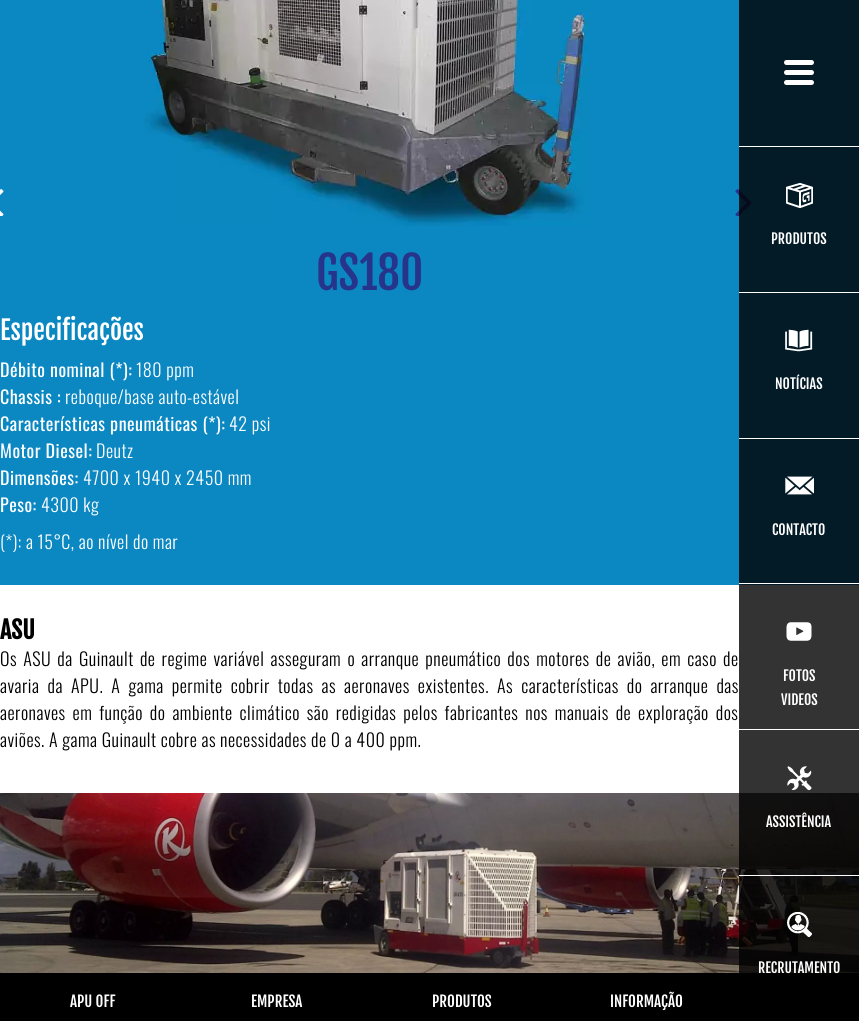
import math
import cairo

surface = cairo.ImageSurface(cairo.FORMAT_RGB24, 859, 1021)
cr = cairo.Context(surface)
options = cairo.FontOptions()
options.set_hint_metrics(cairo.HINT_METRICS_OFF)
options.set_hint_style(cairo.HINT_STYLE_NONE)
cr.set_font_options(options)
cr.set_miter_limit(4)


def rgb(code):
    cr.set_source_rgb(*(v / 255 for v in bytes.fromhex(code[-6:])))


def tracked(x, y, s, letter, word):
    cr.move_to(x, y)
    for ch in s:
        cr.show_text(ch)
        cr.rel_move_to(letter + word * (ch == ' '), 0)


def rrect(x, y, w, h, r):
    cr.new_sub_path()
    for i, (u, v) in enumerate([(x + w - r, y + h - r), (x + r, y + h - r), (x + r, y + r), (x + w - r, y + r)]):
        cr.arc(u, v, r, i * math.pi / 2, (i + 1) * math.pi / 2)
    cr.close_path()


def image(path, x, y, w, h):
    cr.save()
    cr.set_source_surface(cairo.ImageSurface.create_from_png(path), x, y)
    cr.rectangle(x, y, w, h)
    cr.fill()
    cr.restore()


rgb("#ffffff")
cr.paint()
rgb("#0b88c2")
cr.rectangle(0, 0, 859, 585)
cr.fill()
image("img/1.png", 0, 189, 4, 27)
image("img/2.png", 735, 189, 17, 27)
image("img/3.png", 144, 0, 445, 226)
image("img/4.png", 0, 793, 859, 180)
cr.set_source_rgba(0, 0, 0, 0.8)
cr.rectangle(739, 0, 120, 973)
cr.fill()
rgb("#ffffff")
rrect(784, 60, 30, 5, 2.5)
cr.fill()
rrect(784, 70, 30, 5, 2.5)
cr.fill()
rrect(784, 80, 30, 5, 2.5)
cr.fill()
image("img/5.png", 786, 183, 27, 25)
cr.rectangle(739, 146, 120, 1)
cr.fill()
image("img/6.png", 785, 329, 28, 23)
cr.rectangle(739, 292, 120, 1)
cr.fill()
image("img/7.png", 785, 476, 29, 19)
cr.rectangle(739, 438, 120, 1)
cr.fill()
image("img/8.png", 786, 622, 26, 19)
cr.rectangle(739, 583, 120, 1)
cr.fill()
image("img/9.png", 787, 766, 25, 24)
cr.rectangle(739, 729, 120, 1)
cr.fill()
image("img/10.png", 787, 912, 25, 25)
cr.rectangle(739, 875, 120, 1)
cr.fill()
rgb("#000000")
cr.rectangle(0, 973, 859, 48)
cr.fill()
cr.select_font_face("Fjalla One")
cr.set_font_size(45)
rgb("#26348b")
cr.move_to(316, 290)
cr.show_text("GS180")
cr.set_font_size(26)
rgb("#ffffff")
cr.move_to(0, 340)
cr.show_text("Especificações")
cr.select_font_face("Oswald")
cr.set_font_size(18)
tracked(0, 377, "Débito nominal (*):", 0.5, 0)
cr.select_font_face("Oswald Light")
tracked(136, 377, "180 ppm", 0.5, 0)
cr.select_font_face("Oswald")
tracked(0, 404, "Chassis :", 0.5, 0)
cr.select_font_face("Oswald Light")
tracked(65, 404, "reboque/base auto-estável", 0.5, 0)
cr.select_font_face("Oswald")
tracked(0, 431, "Características pneumáticas (*):", 0.5, 0)
cr.select_font_face("Oswald Light")
tracked(229, 431, "42 psi", 0.5, 0)
cr.select_font_face("Oswald")
tracked(0, 458, "Motor Diesel:", 0.5, 0)
cr.select_font_face("Oswald Light")
tracked(96, 458, "Deutz", 0.5, 0)
cr.select_font_face("Oswald")
tracked(0, 485, "Dimensões:", 0.5, 0)
cr.select_font_face("Oswald Light")
tracked(83, 485, "4700 x 1940 x 2450 mm", 0.5, 0)
cr.select_font_face("Oswald")
tracked(0, 512, "Peso:", 0.5, 0)
cr.select_font_face("Oswald Light")
tracked(41, 512, "4300 kg", 0.5, 0)
tracked(0, 549, "(*): a 15°C, ao nível do mar", 0.5, 0)
cr.select_font_face("Fjalla One", cairo.FONT_SLANT_NORMAL, cairo.FONT_WEIGHT_BOLD)
cr.set_font_size(24)
rgb("#000000")
cr.move_to(0, 639)
cr.show_text("ASU")
cr.select_font_face("Oswald Light")
cr.set_font_size(18)
tracked(0, 666, "Os ASU da Guinault de regime variável asseguram o arranque pneumático dos motores de avião, em caso de", 0.5, 2)
tracked(0, 693, "avaria da APU. A gama permite cobrir todas as aeronaves existentes. As características do arranque das", 0.5, 3.9)
tracked(0, 720, "aeronaves em função do ambiente climático são redigidas pelos fabricantes nos manuais de exploração dos", 0.5, 2.75)
tracked(0, 747, "aviões. A gama Guinault cobre as necessidades de 0 a 400 ppm.", 0.5, 0)
cr.select_font_face("Fjalla One")
cr.set_font_size(14)
rgb("#ffffff")
for x, y, s in [
    (771, 244, "PRODUTOS"),
    (775, 389, "NOTÍCIAS"),
    (772, 535, "CONTACTO"),
    (783, 681, "FOTOS"),
    (781, 705, "VIDEOS"),
    (766, 827, "ASSISTÊNCIA"),
    (758, 973, "RECRUTAMENTO"),
]:
    cr.move_to(x, y)
    cr.show_text(s)
cr.set_font_size(15)
for x, y, s in [
    (70, 1007, "APU OFF"),
    (251, 1007, "EMPRESA"),
    (432, 1007, "PRODUTOS"),
    (610, 1007, "INFORMAÇÃO"),
]:
    cr.move_to(x, y)
    cr.show_text(s)
surface.write_to_png("page.png")
